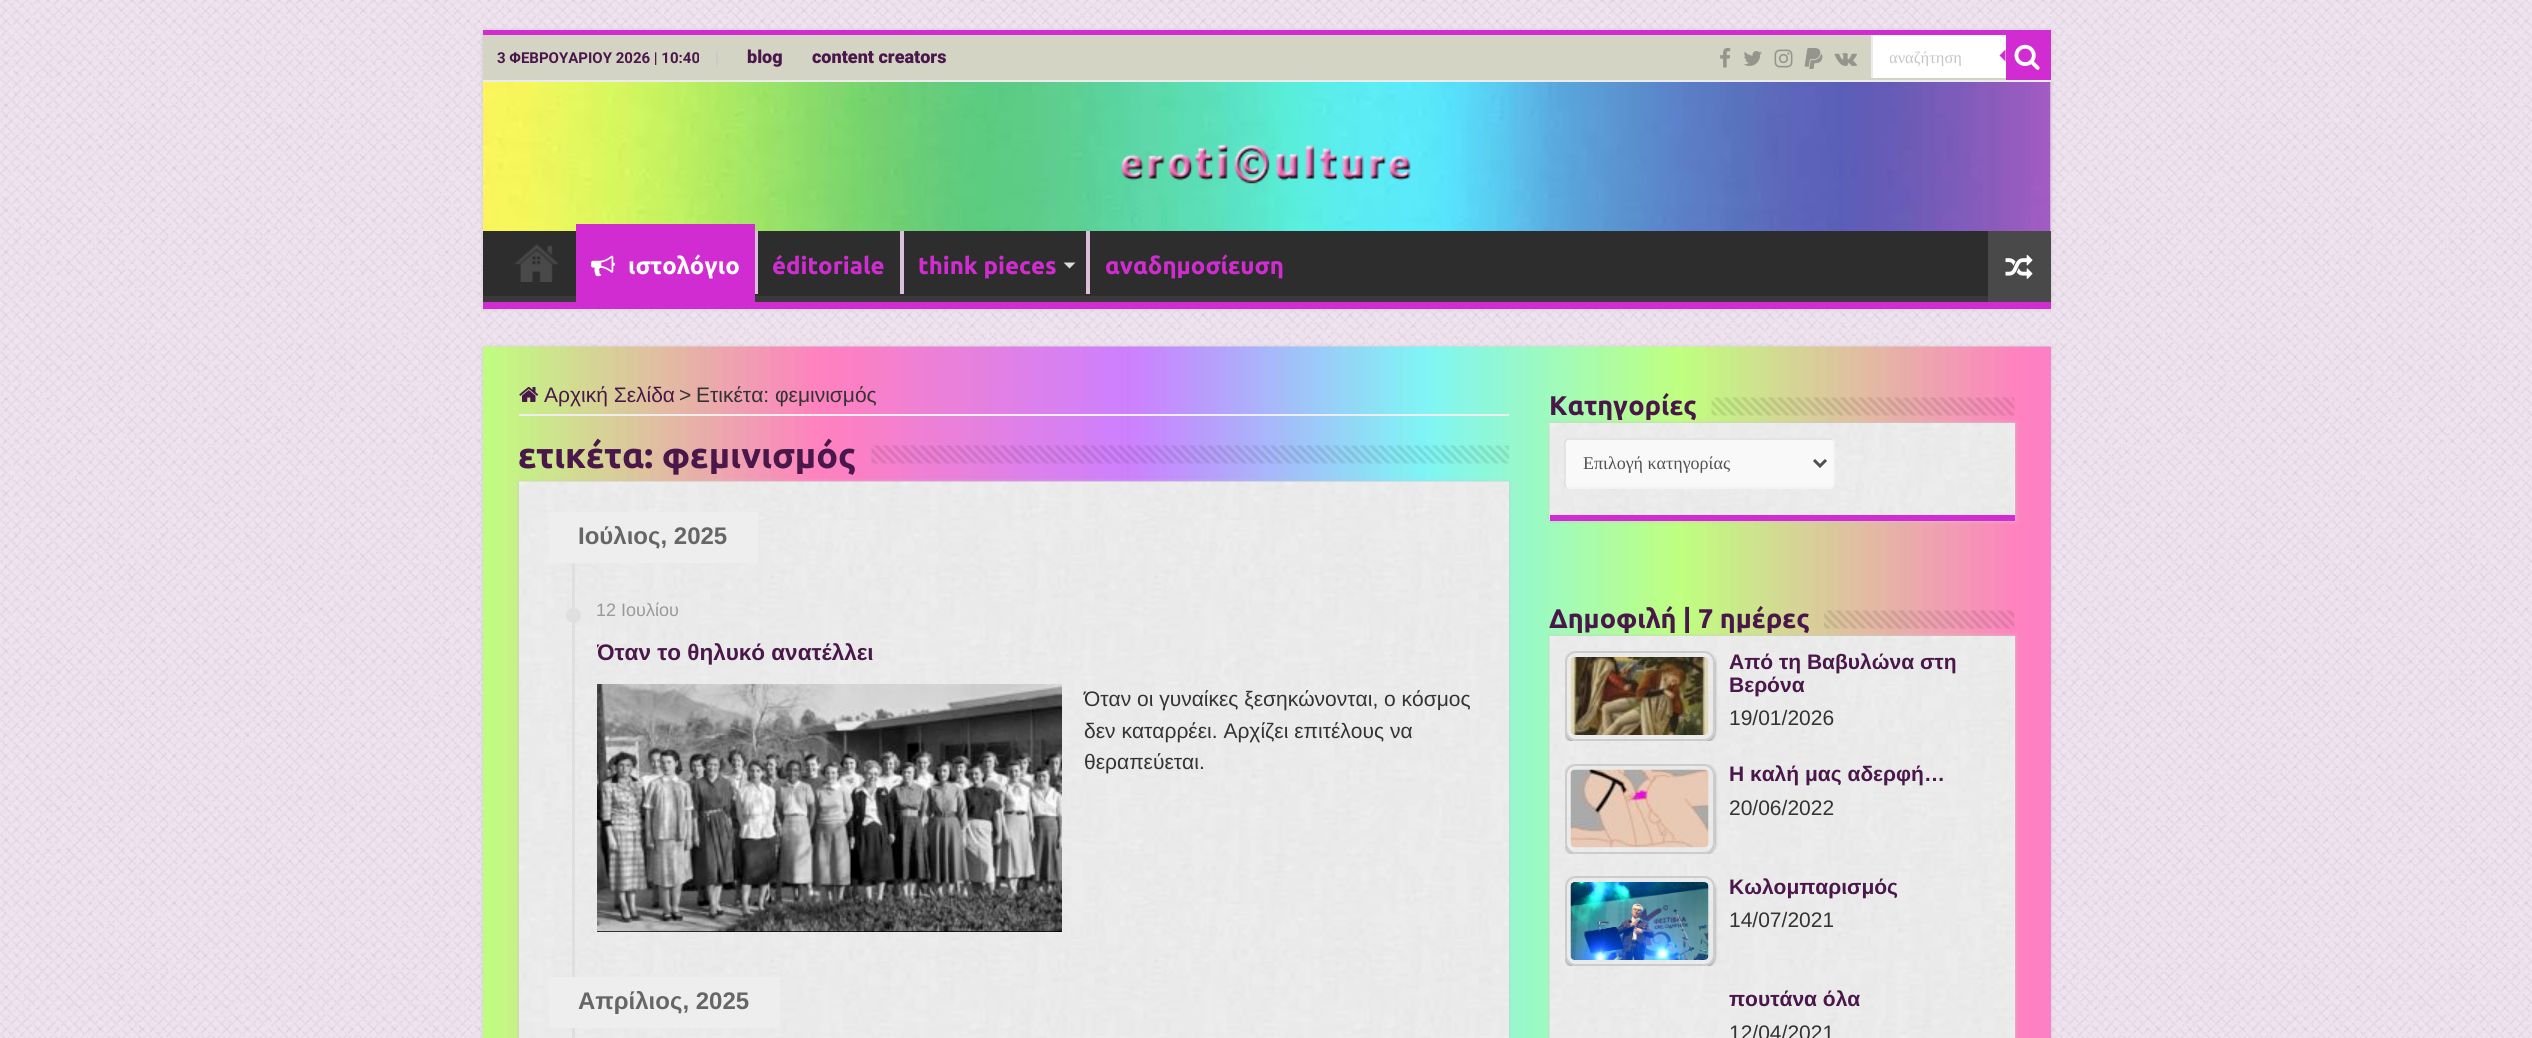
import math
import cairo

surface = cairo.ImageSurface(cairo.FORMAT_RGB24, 2532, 1038)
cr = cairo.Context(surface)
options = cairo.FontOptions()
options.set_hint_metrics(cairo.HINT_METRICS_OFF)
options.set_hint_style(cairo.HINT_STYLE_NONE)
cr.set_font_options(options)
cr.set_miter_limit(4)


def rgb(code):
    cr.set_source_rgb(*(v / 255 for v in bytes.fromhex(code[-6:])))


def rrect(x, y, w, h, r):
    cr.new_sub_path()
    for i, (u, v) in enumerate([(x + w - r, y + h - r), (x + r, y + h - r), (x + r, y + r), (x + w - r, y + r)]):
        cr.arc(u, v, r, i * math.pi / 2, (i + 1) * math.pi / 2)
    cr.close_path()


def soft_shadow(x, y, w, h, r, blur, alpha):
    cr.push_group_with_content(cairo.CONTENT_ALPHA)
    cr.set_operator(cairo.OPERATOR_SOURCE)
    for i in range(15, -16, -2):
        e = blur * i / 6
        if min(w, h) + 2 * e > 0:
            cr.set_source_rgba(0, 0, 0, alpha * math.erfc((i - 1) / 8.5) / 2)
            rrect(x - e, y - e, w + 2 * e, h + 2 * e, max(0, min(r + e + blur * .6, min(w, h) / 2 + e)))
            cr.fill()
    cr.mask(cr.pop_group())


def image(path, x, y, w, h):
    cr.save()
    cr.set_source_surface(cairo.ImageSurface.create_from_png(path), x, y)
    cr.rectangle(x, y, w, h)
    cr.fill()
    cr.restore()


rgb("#eddced")
cr.paint()
image("img/1.png", 0, 0, 2532, 1038)
rgb("#cacaca")
soft_shadow(483, 30, 1568, 279, 0, 2, 1)
rgb("#ffffff")
cr.rectangle(2050, 82, 1, 149)
cr.fill()
image("img/2.png", 483, 82, 1568, 149)
for x, y, w, h, color in [
    (483, 30, 1568, 5, "#d12cd1"),
    (483, 35, 1523, 45, "#d4d4c5"),
    (483, 80, 1568, 2, "#ececec"),
    (716, 50, 2, 16, "#cccccc"),
]:
    rgb(color)
    cr.rectangle(x, y, w, h)
    cr.fill()
image("img/3.png", 1720, 48, 11, 20)
image("img/4.png", 1744, 51, 18, 15)
image("img/5.png", 1774, 49, 19, 19)
image("img/6.png", 1804, 48, 19, 21)
image("img/7.png", 1834, 53, 23, 13)
for x, y, w, h, color in [
    (1873, 35, 133, 43, "#ffffff"),
    (1871, 35, 2, 43, "#ececec"),
    (2006, 35, 45, 45, "#d12cd1"),
]:
    rgb(color)
    cr.rectangle(x, y, w, h)
    cr.fill()
image("img/8.png", 2014, 44, 26, 26)
cr.new_path()
cr.move_to(2005.5, 49.5)
cr.line_to(2005.5, 61.5)
cr.line_to(1999.5, 55.5)
cr.close_path()
cr.fill()
image("img/9.png", 1121, 144, 290, 40)
rgb("#2d2d2d")
cr.rectangle(483, 231, 1505, 65)
cr.fill()
cr.save()
cr.rectangle(483, 231, 1568, 71)
cr.clip()
rgb("#393939")
cr.set_fill_rule(cairo.FILL_RULE_EVEN_ODD)
cr.new_path()
cr.move_to(334, 82)
cr.line_to(2199, 82)
cr.line_to(2199, 450)
cr.line_to(334, 450)
cr.close_path()
cr.move_to(482, 222)
cr.line_to(2049, 222)
cr.curve_to(2050, 222, 2050, 223, 2050, 224)
cr.line_to(2050, 294)
cr.curve_to(2050, 295, 2050, 296, 2049, 296)
cr.line_to(482, 296)
cr.curve_to(481, 296, 480, 295, 480, 294)
cr.line_to(480, 224)
cr.curve_to(480, 223, 481, 222, 482, 222)
cr.close_path()
cr.fill()
cr.restore()
rgb("#d12cd1")
cr.rectangle(483, 302, 1568, 7)
cr.fill()
image("img/10.png", 514, 244, 45, 38)
cr.rectangle(576, 224, 179, 78)
cr.fill()
image("img/11.png", 591, 255, 24, 22)
rgb("#dbbfdb")
cr.rectangle(755, 231, 3, 63)
cr.fill()
cr.rectangle(900, 231, 4, 63)
cr.fill()
rgb("#dddddd")
cr.new_path()
cr.move_to(1063.5, 262.5)
cr.line_to(1075.5, 262.5)
cr.line_to(1069.5, 268.5)
cr.close_path()
cr.fill()
rgb("#dbbfdb")
cr.rectangle(1086, 231, 4, 63)
cr.fill()
rgb("#494949")
cr.rectangle(1988, 231, 63, 71)
cr.fill()
image("img/12.png", 2005, 254, 28, 25)
rgb("#cacaca")
soft_shadow(483, 347, 1568, 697, 0, 2, 1)
rgb("#fc80c6")
cr.rectangle(2050, 347, 1, 691)
cr.fill()
image("img/13.png", 483, 346, 1568, 692)
rgb("#eeeeee")
cr.rectangle(519, 414, 990, 2)
cr.fill()
image("img/14.png", 519, 387, 20, 15)
image("img/15.png", 871, 445, 638, 19)
rgb("#cacaca")
soft_shadow(519, 482, 990, 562, 0, 2, 1)
image("img/16.png", 519, 481, 990, 557)
rgb("#eeeeee")
cr.rectangle(549, 512, 209, 51)
cr.fill()
rgb("#dfdfe0")
cr.rectangle(572, 563, 3, 414)
cr.fill()
cr.arc(573.5, 615.5, 7.5, 0, 2 * math.pi)
cr.fill()
rgb("#000000")
cr.rectangle(597, 931, 465, 1)
cr.fill()
image("img/17.png", 597, 684, 465, 248)
rgb("#eeeeee")
cr.rectangle(549, 977, 231, 51)
cr.fill()
rgb("#dfdfe0")
cr.rectangle(572, 1028, 3, 10)
cr.fill()
image("img/18.png", 1711, 397, 304, 19)
rgb("#cacaca")
soft_shadow(1550, 423, 465, 98, 0, 2, 1)
rgb("#f0f0f0")
cr.rectangle(2014, 423, 1, 92)
cr.fill()
image("img/19.png", 1549, 423, 466, 98)
rgb("#d12cd1")
cr.rectangle(1550, 515, 465, 6)
cr.fill()
rgb("#f9f9f9")
rrect(1565, 438, 270, 51, 5)
cr.fill()
cr.new_path()
cr.move_to(1832.5, 440)
cr.curve_to(1835, 442, 1834, 448, 1834, 449.5)
cr.line_to(1834, 477.5)
cr.curve_to(1834, 480, 1835.5, 488, 1830, 488)
cr.line_to(1568, 488)
cr.line_to(1566.5, 487)
rgb("#f1f1f1")
cr.set_line_width(1.5)
cr.stroke()
cr.new_path()
cr.move_to(1566.5, 487)
cr.curve_to(1564, 485, 1565, 479, 1565, 477.5)
cr.line_to(1565, 449.5)
cr.curve_to(1565, 447, 1563.5, 439, 1569, 439)
cr.line_to(1831, 439)
cr.line_to(1832.5, 440)
rgb("#dddddd")
cr.stroke()
cr.new_path()
cr.move_to(1814, 460)
cr.line_to(1820, 466)
cr.line_to(1826, 460)
rgb("#515151")
cr.set_line_width(3)
cr.stroke()
image("img/20.png", 1824, 610, 191, 19)
rgb("#cacaca")
soft_shadow(1550, 636, 465, 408, 0, 2, 1)
rgb("#f0f0f0")
cr.rectangle(2014, 636, 1, 402)
cr.fill()
image("img/21.png", 1549, 636, 466, 402)
cr.save()
cr.rectangle(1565, 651, 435, 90)
cr.clip()
cr.set_fill_rule(cairo.FILL_RULE_EVEN_ODD)
cr.new_path()
cr.move_to(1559, 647)
cr.line_to(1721, 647)
cr.line_to(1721, 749)
cr.line_to(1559, 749)
cr.close_path()
cr.move_to(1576, 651)
cr.line_to(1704, 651)
cr.curve_to(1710, 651, 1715, 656, 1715, 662)
cr.line_to(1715, 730)
cr.curve_to(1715, 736, 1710, 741, 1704, 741)
cr.line_to(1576, 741)
cr.curve_to(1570, 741, 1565, 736, 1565, 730)
cr.line_to(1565, 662)
cr.curve_to(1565, 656, 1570, 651, 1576, 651)
cr.close_path()
cr.clip()
rgb("#000000")
soft_shadow(1565, 653, 150, 90, 11, 1.5, 0.4)
cr.restore()
rrect(1566, 652, 148, 88, 10)
rgb("#cccccc")
cr.set_line_width(2)
cr.stroke()
image("img/22.png", 1570, 657, 139, 78)
cr.save()
cr.rectangle(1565, 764, 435, 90)
cr.clip()
cr.set_fill_rule(cairo.FILL_RULE_EVEN_ODD)
cr.new_path()
cr.move_to(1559, 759)
cr.line_to(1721, 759)
cr.line_to(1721, 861)
cr.line_to(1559, 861)
cr.close_path()
cr.move_to(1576, 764)
cr.line_to(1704, 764)
cr.curve_to(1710, 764, 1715, 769, 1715, 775)
cr.line_to(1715, 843)
cr.curve_to(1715, 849, 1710, 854, 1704, 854)
cr.line_to(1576, 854)
cr.curve_to(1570, 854, 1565, 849, 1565, 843)
cr.line_to(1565, 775)
cr.curve_to(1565, 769, 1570, 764, 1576, 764)
cr.close_path()
cr.clip()
rgb("#000000")
soft_shadow(1565, 765, 150, 90, 11, 1.5, 0.4)
cr.restore()
rrect(1566, 765, 148, 88, 10)
cr.stroke()
image("img/23.png", 1570, 769, 139, 79)
cr.save()
cr.rectangle(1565, 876, 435, 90)
cr.clip()
cr.set_fill_rule(cairo.FILL_RULE_EVEN_ODD)
cr.new_path()
cr.move_to(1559, 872)
cr.line_to(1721, 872)
cr.line_to(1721, 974)
cr.line_to(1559, 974)
cr.close_path()
cr.move_to(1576, 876)
cr.line_to(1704, 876)
cr.curve_to(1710, 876, 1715, 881, 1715, 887)
cr.line_to(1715, 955)
cr.curve_to(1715, 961, 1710, 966, 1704, 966)
cr.line_to(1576, 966)
cr.curve_to(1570, 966, 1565, 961, 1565, 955)
cr.line_to(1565, 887)
cr.curve_to(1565, 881, 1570, 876, 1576, 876)
cr.close_path()
cr.clip()
rgb("#000000")
soft_shadow(1565, 878, 150, 90, 11, 1.5, 0.4)
cr.restore()
rrect(1566, 877, 148, 88, 10)
cr.stroke()
image("img/24.png", 1570, 882, 139, 78)
cr.select_font_face("Roboto", cairo.FONT_SLANT_NORMAL, cairo.FONT_WEIGHT_BOLD)
cr.set_font_size(15)
rgb("#4a174a")
cr.move_to(497, 63)
cr.show_text("3 ΦΕΒΡΟΥΑΡΙΟΥ 2026 | 10:40")
cr.select_font_face("Roboto Black")
cr.set_font_size(18)
cr.move_to(747, 63)
cr.show_text("blog")
cr.move_to(812, 63)
cr.show_text("content creators")
cr.save()
cr.rectangle(1890, 48, 98, 18)
cr.clip()
cr.select_font_face("Liberation Serif")
cr.set_font_size(16.5)
rgb("#c5c5c5")
cr.move_to(1889, 63)
cr.show_text("αναζήτηση")
cr.restore()
cr.select_font_face("Ubuntu", cairo.FONT_SLANT_NORMAL, cairo.FONT_WEIGHT_BOLD)
cr.set_font_size(24)
rgb("#ffffff")
cr.move_to(628, 274)
cr.show_text("ιστολόγιο")
rgb("#d12cd1")
for x, y, s in [
    (772, 274, "éditoriale"),
    (918, 274, "think pieces"),
    (1105, 274, "αναδημοσίευση"),
]:
    cr.move_to(x, y)
    cr.show_text(s)
cr.select_font_face("Liberation Sans")
cr.set_font_size(21)
rgb("#4a174a")
cr.move_to(544, 402)
cr.show_text("Αρχική Σελίδα")
rgb("#333333")
cr.move_to(679, 402)
cr.show_text(">")
cr.move_to(696, 402)
cr.show_text("Ετικέτα: φεμινισμός")
cr.select_font_face("Ubuntu", cairo.FONT_SLANT_NORMAL, cairo.FONT_WEIGHT_BOLD)
cr.set_font_size(36)
rgb("#4a174a")
cr.move_to(518, 468)
cr.show_text("ετικέτα: φεμινισμός")
cr.select_font_face("Liberation Sans", cairo.FONT_SLANT_NORMAL, cairo.FONT_WEIGHT_BOLD)
cr.set_font_size(24)
rgb("#666666")
cr.move_to(578, 544)
cr.show_text("Ιούλιος, 2025")
cr.select_font_face("Liberation Sans")
cr.set_font_size(18)
rgb("#999999")
cr.move_to(596, 616)
cr.show_text("12 Ιουλίου")
cr.save()
cr.rectangle(597, 600, 882, 332)
cr.clip()
cr.select_font_face("Liberation Sans", cairo.FONT_SLANT_NORMAL, cairo.FONT_WEIGHT_BOLD)
cr.set_font_size(22.5)
rgb("#4a174a")
cr.move_to(596, 660)
cr.show_text("Όταν το θηλυκό ανατέλλει")
cr.restore()
cr.set_font_size(21)
rgb("#333333")
for x, y, s in [
    (1084, 706, "Όταν οι γυναίκες ξεσηκώνονται, ο κόσμος"),
    (1084, 738, "δεν καταρρέει. Αρχίζει επιτέλους να"),
    (1084, 769, "θεραπεύεται."),
]:
    cr.move_to(x, y)
    cr.show_text(s)
cr.select_font_face("Liberation Sans", cairo.FONT_SLANT_NORMAL, cairo.FONT_WEIGHT_BOLD)
cr.set_font_size(24)
rgb("#666666")
cr.move_to(578, 1009)
cr.show_text("Απρίλιος, 2025")
cr.select_font_face("Ubuntu", cairo.FONT_SLANT_NORMAL, cairo.FONT_WEIGHT_BOLD)
cr.set_font_size(27)
rgb("#4a174a")
cr.move_to(1549, 415)
cr.show_text("Kατηγορίες")
cr.select_font_face("Liberation Serif")
cr.set_font_size(18)
rgb("#515151")
cr.move_to(1583, 469)
cr.show_text("Επιλογή κατηγορίας")
cr.select_font_face("Ubuntu", cairo.FONT_SLANT_NORMAL, cairo.FONT_WEIGHT_BOLD)
cr.set_font_size(27)
rgb("#4a174a")
cr.move_to(1549, 628)
cr.show_text("Δημοφιλή | 7 ημέρες")
cr.select_font_face("Liberation Sans", cairo.FONT_SLANT_NORMAL, cairo.FONT_WEIGHT_BOLD)
cr.set_font_size(21)
cr.move_to(1729, 669)
cr.show_text("Από τη Βαβυλώνα στη")
cr.move_to(1729, 692)
cr.show_text("Βερόνα")
cr.select_font_face("Liberation Sans")
rgb("#333333")
cr.move_to(1729, 725)
cr.show_text("19/01/2026")
cr.select_font_face("Liberation Sans", cairo.FONT_SLANT_NORMAL, cairo.FONT_WEIGHT_BOLD)
rgb("#4a174a")
cr.move_to(1729, 781)
cr.show_text("Η καλή μας αδερφή…")
cr.select_font_face("Liberation Sans")
rgb("#333333")
cr.move_to(1729, 815)
cr.show_text("20/06/2022")
cr.select_font_face("Liberation Sans", cairo.FONT_SLANT_NORMAL, cairo.FONT_WEIGHT_BOLD)
rgb("#4a174a")
cr.move_to(1729, 894)
cr.show_text("Κωλομπαρισμός")
cr.select_font_face("Liberation Sans")
rgb("#333333")
cr.move_to(1729, 927)
cr.show_text("14/07/2021")
cr.select_font_face("Liberation Sans", cairo.FONT_SLANT_NORMAL, cairo.FONT_WEIGHT_BOLD)
rgb("#4a174a")
cr.move_to(1729, 1006)
cr.show_text("πουτάνα όλα")
cr.select_font_face("Liberation Sans")
rgb("#333333")
cr.move_to(1729, 1040)
cr.show_text("12/04/2021")
surface.write_to_png("page.png")
